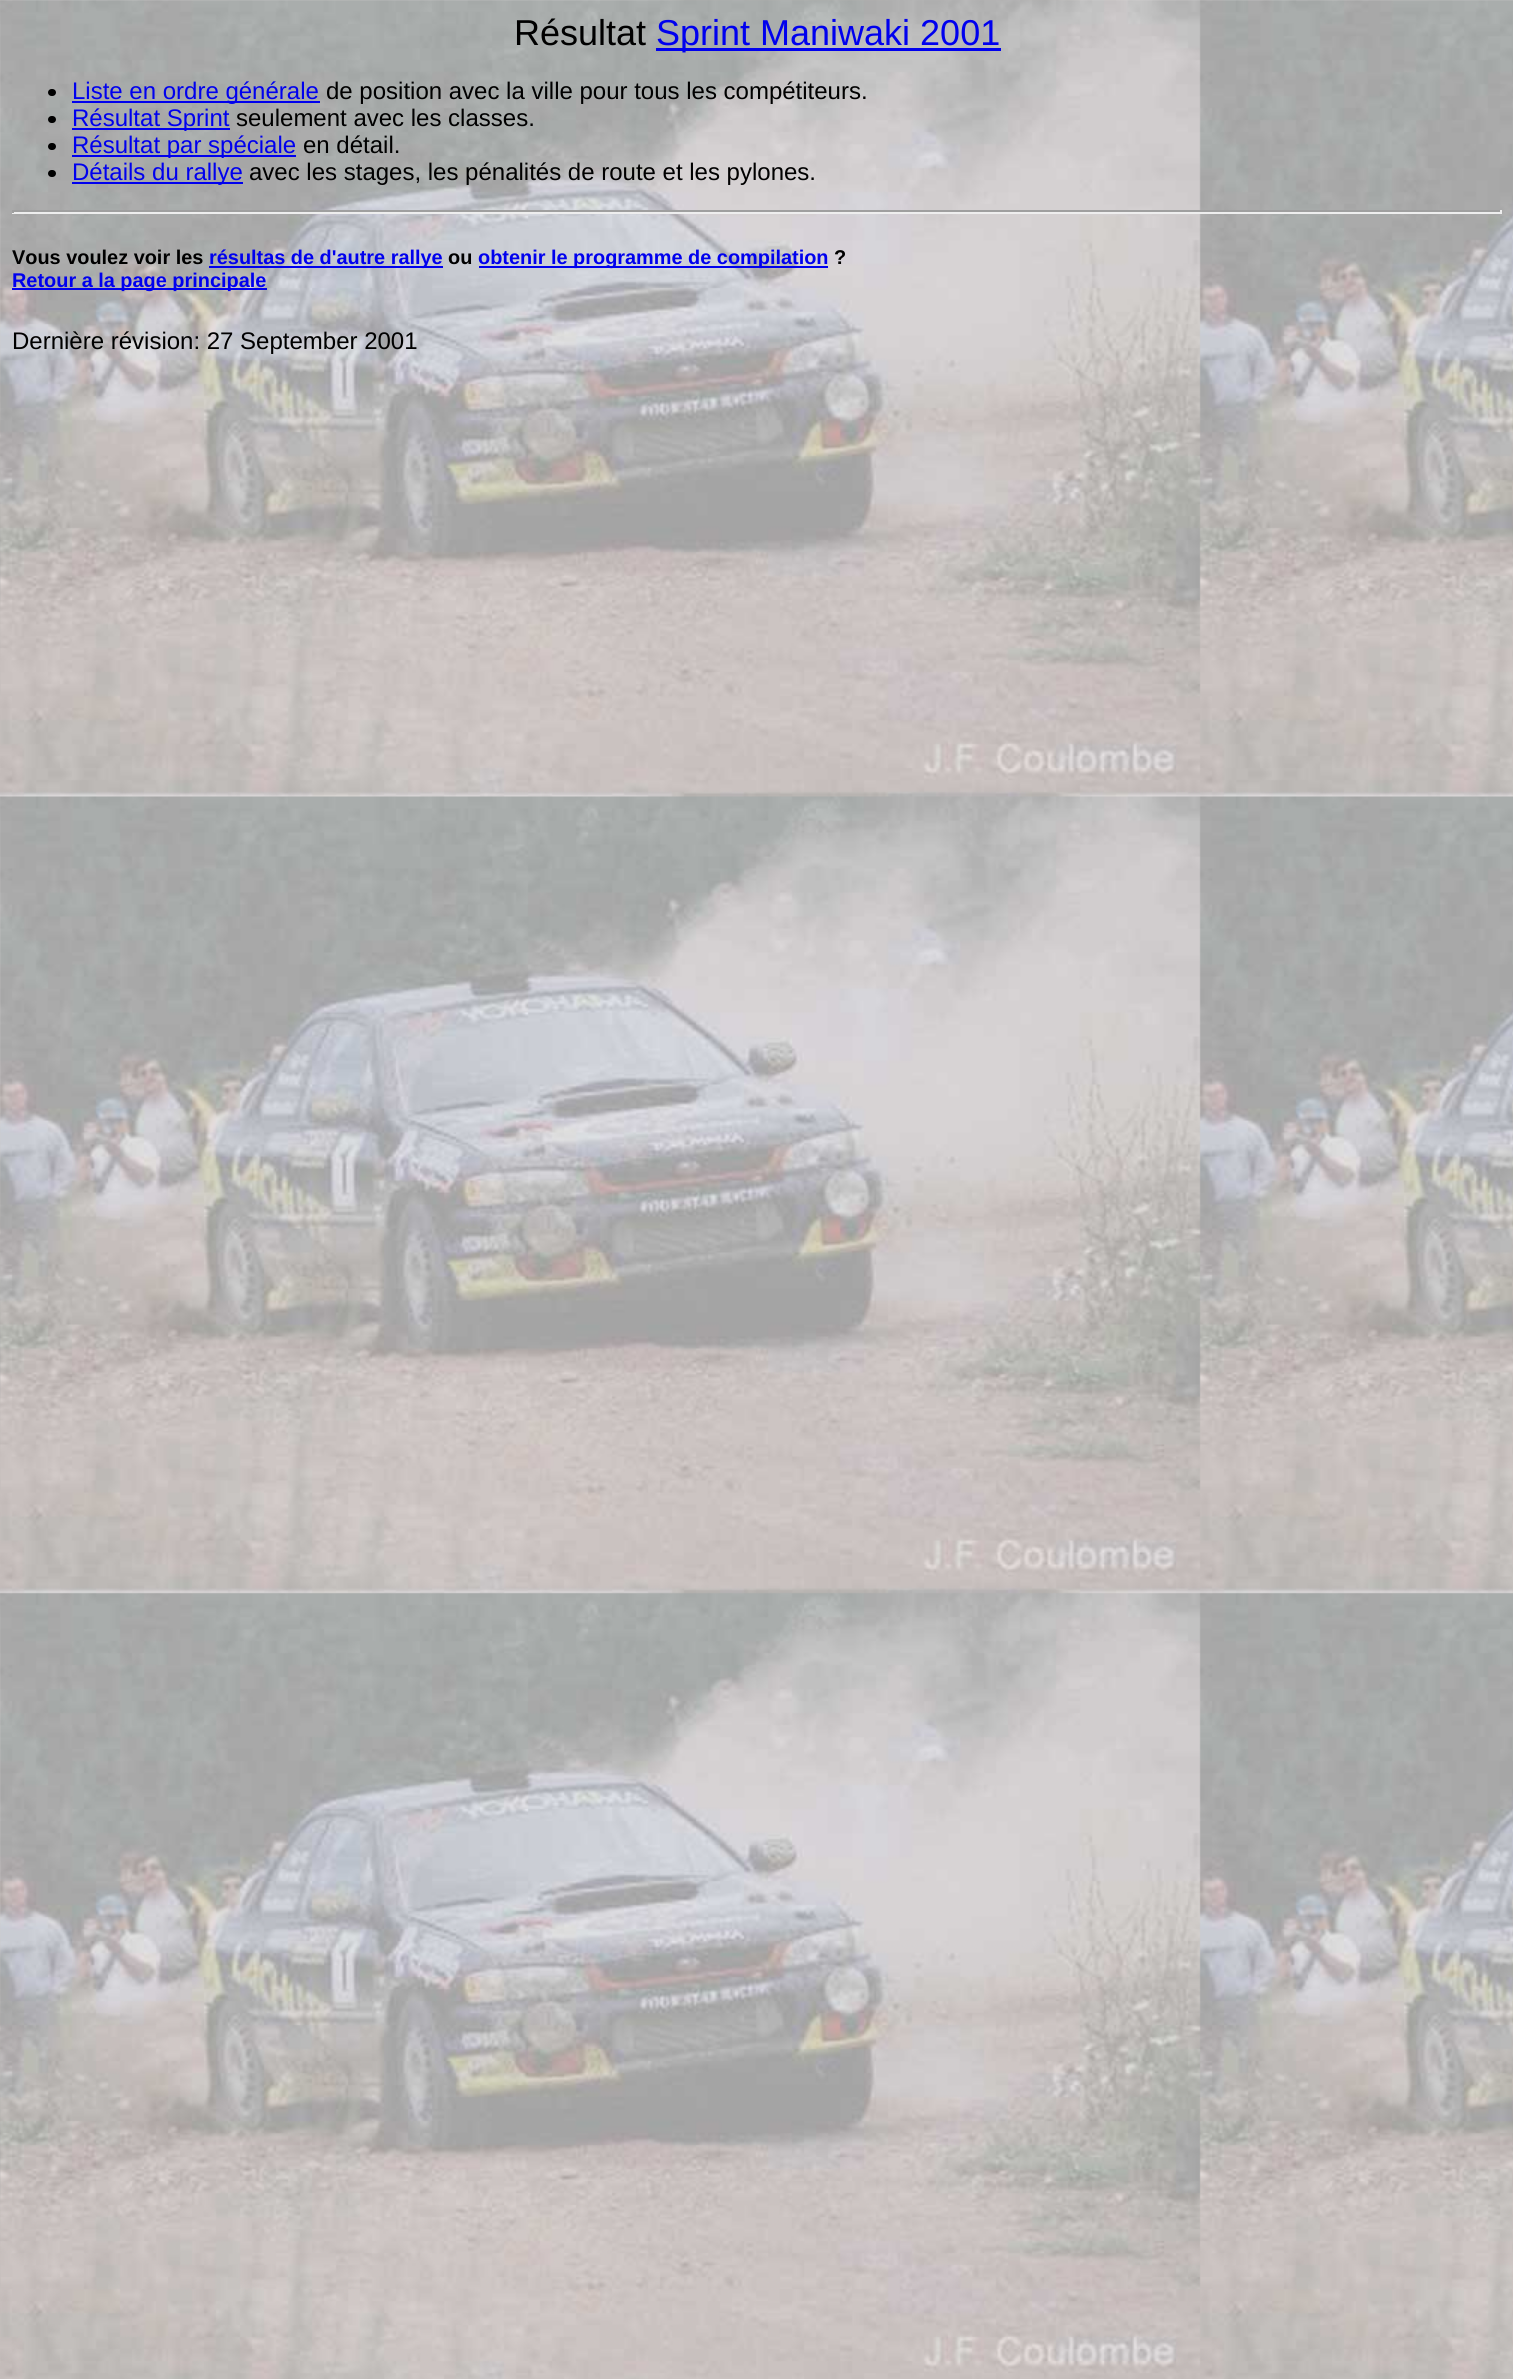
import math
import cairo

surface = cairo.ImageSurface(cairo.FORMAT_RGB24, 1513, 2379)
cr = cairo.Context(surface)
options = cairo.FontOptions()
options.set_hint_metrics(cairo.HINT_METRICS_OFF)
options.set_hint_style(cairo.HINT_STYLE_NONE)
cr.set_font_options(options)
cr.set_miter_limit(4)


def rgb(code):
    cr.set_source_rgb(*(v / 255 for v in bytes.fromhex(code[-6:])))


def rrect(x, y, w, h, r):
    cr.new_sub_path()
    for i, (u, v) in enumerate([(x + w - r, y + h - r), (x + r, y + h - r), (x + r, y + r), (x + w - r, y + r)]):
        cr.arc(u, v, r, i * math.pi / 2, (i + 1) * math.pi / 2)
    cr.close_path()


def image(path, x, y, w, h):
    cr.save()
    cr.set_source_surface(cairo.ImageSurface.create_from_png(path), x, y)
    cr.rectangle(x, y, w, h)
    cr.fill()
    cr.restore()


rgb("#ffffff")
cr.paint()
image("img/1.png", 0, 0, 1513, 2379)
rgb("#0000ee")
cr.rectangle(656, 48, 345, 3)
cr.fill()
rgb("#000000")
rrect(48, 89, 8, 7, 3.5)
cr.fill()
rgb("#0000ee")
cr.rectangle(72, 101, 248, 2)
cr.fill()
rgb("#000000")
rrect(48, 116, 8, 7, 3.5)
cr.fill()
rgb("#0000ee")
cr.rectangle(72, 128, 158, 2)
cr.fill()
rgb("#000000")
rrect(48, 143, 8, 7, 3.5)
cr.fill()
rgb("#0000ee")
cr.rectangle(72, 155, 224, 2)
cr.fill()
rgb("#000000")
rrect(48, 170, 8, 7, 3.5)
cr.fill()
for x, y, w, h, color in [
    (72, 182, 171, 2, "#0000ee"),
    (12, 210, 1490, 2, "#9f9f9f"),
    (1500, 210, 2, 3, "#eeeeee"),
    (12, 212, 1490, 2, "#eeeeee"),
    (12, 210, 2, 3, "#9f9f9f"),
    (209, 266, 234, 2, "#0000ee"),
    (479, 266, 349, 2, "#0000ee"),
    (12, 288, 255, 2, "#0000ee"),
]:
    rgb(color)
    cr.rectangle(x, y, w, h)
    cr.fill()
cr.select_font_face("Liberation Sans")
cr.set_font_size(36)
rgb("#000000")
cr.move_to(514, 45)
cr.show_text("Résultat")
rgb("#0000ee")
cr.move_to(656, 45)
cr.show_text("Sprint Maniwaki 2001")
cr.set_font_size(24)
cr.move_to(72, 99)
cr.show_text("Liste en ordre générale")
rgb("#000000")
cr.move_to(326, 99)
cr.show_text("de position avec la ville pour tous les compétiteurs.")
rgb("#0000ee")
cr.move_to(72, 126)
cr.show_text("Résultat Sprint")
rgb("#000000")
cr.move_to(236, 126)
cr.show_text("seulement avec les classes.")
rgb("#0000ee")
cr.move_to(72, 153)
cr.show_text("Résultat par spéciale")
rgb("#000000")
cr.move_to(303, 153)
cr.show_text("en détail.")
rgb("#0000ee")
cr.move_to(72, 180)
cr.show_text("Détails du rallye")
rgb("#000000")
cr.move_to(249, 180)
cr.show_text("avec les stages, les pénalités de route et les pylones.")
cr.select_font_face("Liberation Sans", cairo.FONT_SLANT_NORMAL, cairo.FONT_WEIGHT_BOLD)
cr.set_font_size(19.9)
cr.move_to(12, 264)
cr.show_text("Vous voulez voir les")
rgb("#0000ee")
cr.move_to(209, 264)
cr.show_text("résultas de d'autre rallye")
rgb("#000000")
cr.move_to(448, 264)
cr.show_text("ou")
rgb("#0000ee")
cr.move_to(478, 264)
cr.show_text("obtenir le programme de compilation")
rgb("#000000")
cr.move_to(834, 264)
cr.show_text("?")
rgb("#0000ee")
cr.move_to(12, 287)
cr.show_text("Retour a la page principale")
cr.select_font_face("Liberation Sans")
cr.set_font_size(24)
rgb("#000000")
cr.move_to(12, 349)
cr.show_text("Dernière révision: 27 September 2001")
surface.write_to_png("page.png")
